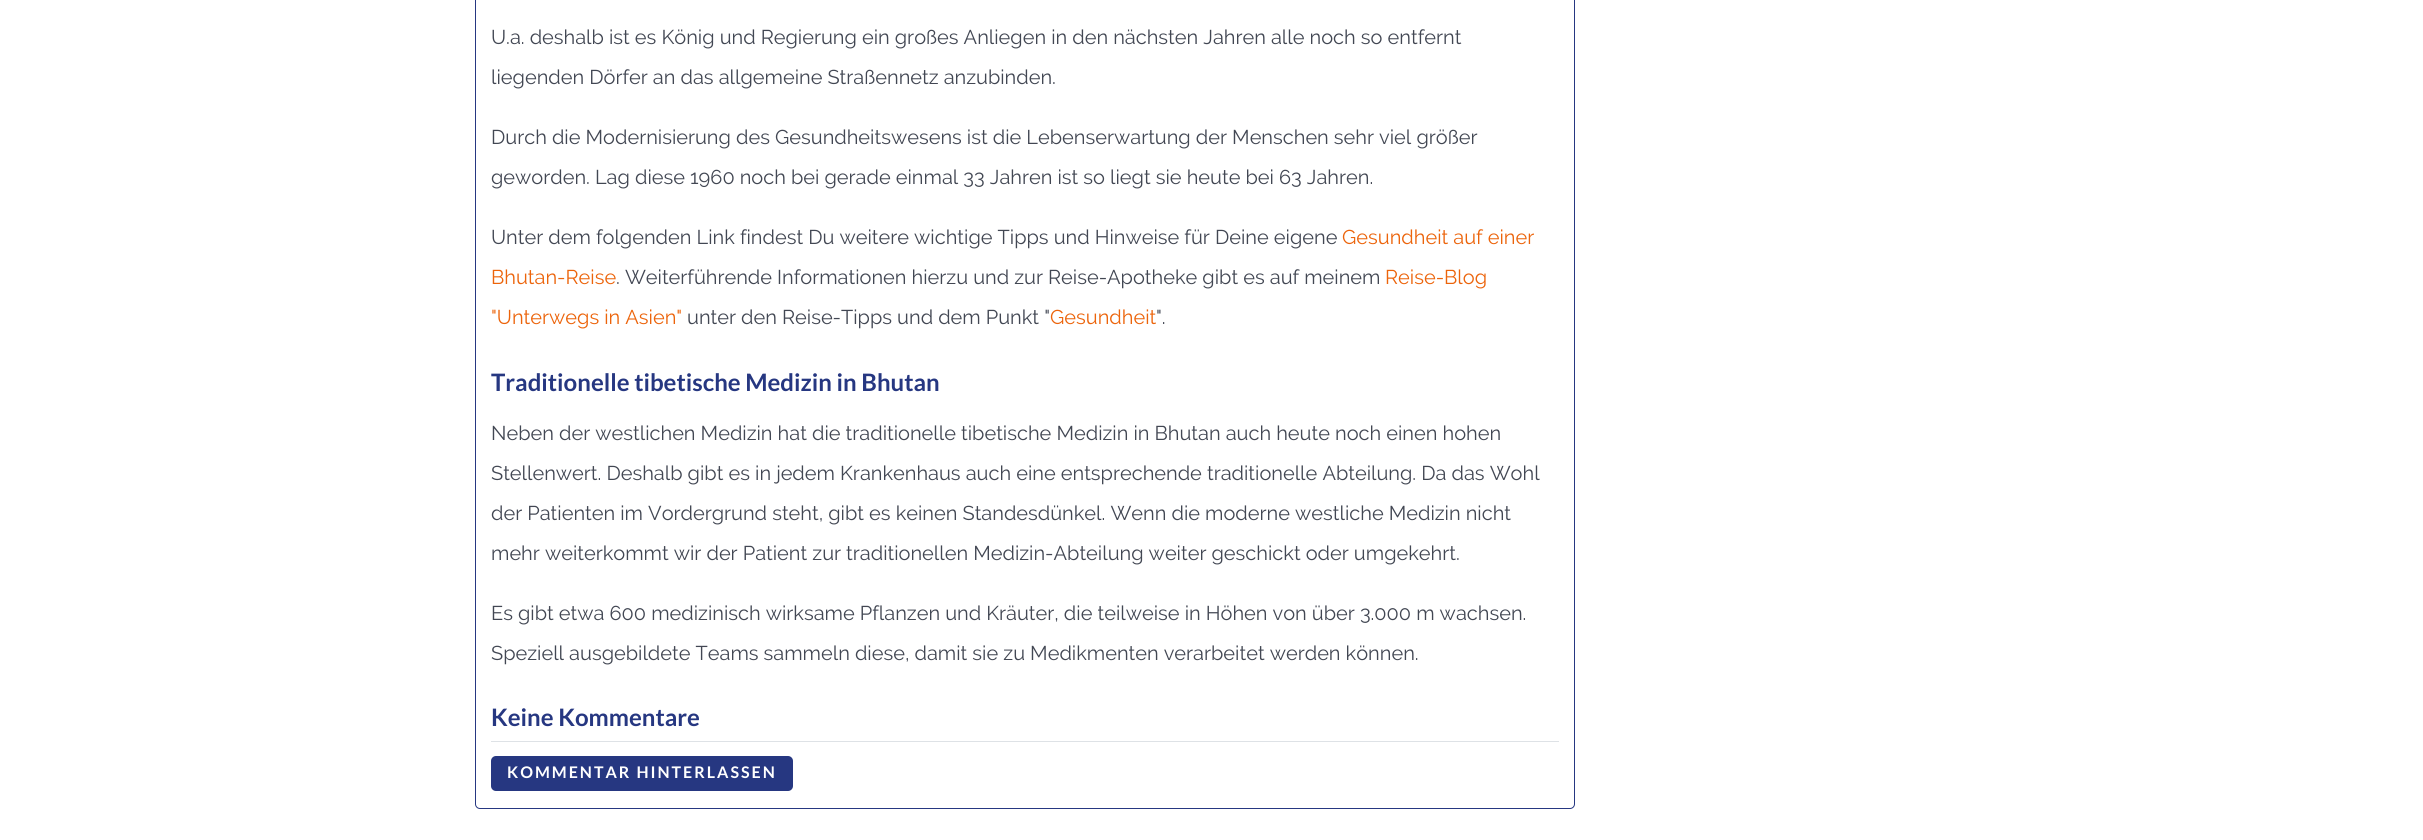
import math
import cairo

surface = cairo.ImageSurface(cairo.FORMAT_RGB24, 2423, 840)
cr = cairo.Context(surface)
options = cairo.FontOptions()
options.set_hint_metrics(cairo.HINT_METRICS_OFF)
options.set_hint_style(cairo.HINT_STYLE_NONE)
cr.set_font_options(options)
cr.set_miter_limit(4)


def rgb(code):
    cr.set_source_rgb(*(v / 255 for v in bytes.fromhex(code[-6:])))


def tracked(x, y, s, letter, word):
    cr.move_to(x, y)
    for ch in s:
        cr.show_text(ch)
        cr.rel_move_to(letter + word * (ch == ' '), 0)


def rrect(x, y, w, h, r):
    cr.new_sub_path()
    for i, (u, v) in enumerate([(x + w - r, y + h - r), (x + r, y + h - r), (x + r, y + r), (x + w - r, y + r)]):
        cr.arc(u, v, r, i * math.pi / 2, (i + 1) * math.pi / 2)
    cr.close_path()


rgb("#ffffff")
cr.paint()
rrect(475.5, -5.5, 1099, 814, 4.5)
rgb("#263781")
cr.set_line_width(1)
cr.stroke()
rgb("#dee2e6")
cr.rectangle(491, 741, 1068, 1)
cr.fill()
rgb("#263781")
rrect(491, 756, 302, 35, 5)
cr.fill()
cr.select_font_face("Raleway")
cr.set_font_size(20)
rgb("#424753")
for x, y, s in [
    (491, 44, "U.a. deshalb ist es König und Regierung ein großes Anliegen in den nächsten Jahren alle noch so entfernt"),
    (491, 84, "liegenden Dörfer an das allgemeine Straßennetz anzubinden."),
    (491, 144, "Durch die Modernisierung des Gesundheitswesens ist die Lebenserwartung der Menschen sehr viel größer"),
    (491, 184, "geworden. Lag diese 1960 noch bei gerade einmal 33 Jahren ist so liegt sie heute bei 63 Jahren."),
    (491, 244, "Unter dem folgenden Link findest Du weitere wichtige Tipps und Hinweise für Deine eigene"),
]:
    cr.move_to(x, y)
    cr.show_text(s)
rgb("#ec640b")
cr.move_to(1342, 244)
cr.show_text("Gesundheit auf einer")
cr.move_to(491, 284)
cr.show_text("Bhutan-Reise")
rgb("#424753")
cr.move_to(616, 284)
cr.show_text(". Weiterführende Informationen hierzu und zur Reise-Apotheke gibt es auf meinem")
rgb("#ec640b")
cr.move_to(1385, 284)
cr.show_text("Reise-Blog")
cr.move_to(491, 324)
cr.show_text("\"Unterwegs in Asien\"")
rgb("#424753")
cr.move_to(687, 324)
cr.show_text("unter den Reise-Tipps und dem Punkt \"")
rgb("#ec640b")
cr.move_to(1050, 324)
cr.show_text("Gesundheit")
rgb("#424753")
cr.move_to(1156, 324)
cr.show_text("\".")
cr.select_font_face("Lato", cairo.FONT_SLANT_NORMAL, cairo.FONT_WEIGHT_BOLD)
cr.set_font_size(24)
rgb("#263781")
cr.move_to(491, 391)
cr.show_text("Traditionelle tibetische Medizin in Bhutan")
cr.select_font_face("Raleway")
cr.set_font_size(20)
rgb("#424753")
for x, y, s in [
    (491, 440, "Neben der westlichen Medizin hat die traditionelle tibetische Medizin in Bhutan auch heute noch einen hohen"),
    (491, 480, "Stellenwert. Deshalb gibt es in jedem Krankenhaus auch eine entsprechende traditionelle Abteilung. Da das Wohl"),
    (491, 520, "der Patienten im Vordergrund steht, gibt es keinen Standesdünkel. Wenn die moderne westliche Medizin nicht"),
    (491, 560, "mehr weiterkommt wir der Patient zur traditionellen Medizin-Abteilung weiter geschickt oder umgekehrt."),
    (491, 620, "Es gibt etwa 600 medizinisch wirksame Pflanzen und Kräuter, die teilweise in Höhen von über 3.000 m wachsen."),
    (491, 660, "Speziell ausgebildete Teams sammeln diese, damit sie zu Medikmenten verarbeitet werden können."),
]:
    cr.move_to(x, y)
    cr.show_text(s)
cr.select_font_face("Lato", cairo.FONT_SLANT_NORMAL, cairo.FONT_WEIGHT_BOLD)
cr.set_font_size(24)
rgb("#263781")
cr.move_to(491, 726)
cr.show_text("Keine Kommentare")
cr.set_font_size(16)
rgb("#ffffff")
tracked(507, 778, "KOMMENTAR HINTERLASSEN", 2, 0)
surface.write_to_png("page.png")
